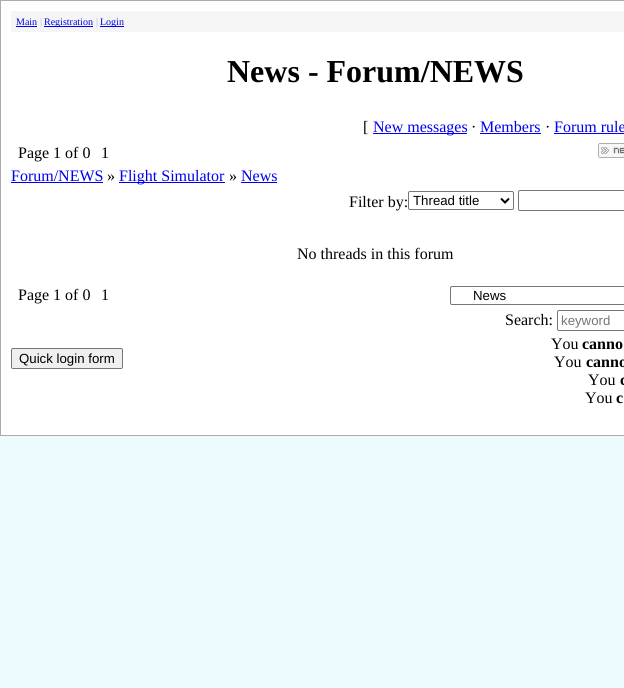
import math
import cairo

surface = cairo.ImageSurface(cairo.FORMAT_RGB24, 624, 688)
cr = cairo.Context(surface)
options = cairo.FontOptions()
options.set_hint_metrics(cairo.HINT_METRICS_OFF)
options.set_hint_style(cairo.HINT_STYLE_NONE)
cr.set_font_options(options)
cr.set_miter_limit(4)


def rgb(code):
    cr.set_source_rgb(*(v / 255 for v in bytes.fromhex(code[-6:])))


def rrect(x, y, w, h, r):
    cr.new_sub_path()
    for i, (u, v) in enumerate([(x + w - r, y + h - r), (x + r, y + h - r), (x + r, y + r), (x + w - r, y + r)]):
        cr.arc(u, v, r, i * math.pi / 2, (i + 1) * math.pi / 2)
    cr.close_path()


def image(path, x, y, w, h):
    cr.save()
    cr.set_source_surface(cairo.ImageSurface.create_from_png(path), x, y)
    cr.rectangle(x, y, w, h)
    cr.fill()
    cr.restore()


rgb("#edfbff")
cr.paint()
rgb("#ffffff")
cr.rectangle(0.5, 0.5, 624, 435)
cr.fill_preserve()
rgb("#acacac")
cr.set_line_width(1)
cr.stroke()
for x, y, w, h, color in [
    (11, 11, 613, 21, "#f5f5f5"),
    (16, 26, 21, 1, "#0000ee"),
    (44, 26, 49, 1, "#0000ee"),
    (100, 26, 24, 1, "#0000ee"),
    (373, 133, 94, 1, "#0000ee"),
    (480, 133, 61, 1, "#0000ee"),
    (554, 133, 70, 1, "#0000ee"),
]:
    rgb(color)
    cr.rectangle(x, y, w, h)
    cr.fill()
image("img/1.png", 598, 143, 26, 15)
for x, y, w, h, color in [
    (11, 182, 92, 1, "#0000ee"),
    (119, 182, 106, 1, "#0000ee"),
    (241, 182, 36, 1, "#0000ee"),
]:
    rgb(color)
    cr.rectangle(x, y, w, h)
    cr.fill()
rrect(408.5, 191.5, 105, 18, 1.5)
rgb("#767676")
cr.stroke()
cr.new_path()
cr.move_to(501, 198.5)
cr.line_to(505, 202.5)
cr.line_to(509, 198.5)
rgb("#000000")
cr.set_line_width(2)
cr.stroke()
rrect(518.5, 190.5, 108, 20, 1.5)
rgb("#767676")
cr.set_line_width(1)
cr.stroke()
rrect(450.5, 286.5, 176, 18, 1.5)
cr.stroke()
rgb("#efefef")
rrect(11.5, 348.5, 111, 20, 1.5)
cr.fill_preserve()
rgb("#767676")
cr.stroke()
rrect(557.5, 310.5, 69, 20, 1.5)
cr.stroke()
cr.select_font_face("Liberation Serif")
cr.set_font_size(10)
rgb("#0000ee")
cr.move_to(16, 25)
cr.show_text("Main")
rgb("#b7b7b7")
cr.move_to(40, 25)
cr.show_text("|")
rgb("#0000ee")
cr.move_to(44, 25)
cr.show_text("Registration")
rgb("#b7b7b7")
cr.move_to(96, 25)
cr.show_text("|")
rgb("#0000ee")
cr.move_to(100, 25)
cr.show_text("Login")
cr.select_font_face("Liberation Serif", cairo.FONT_SLANT_NORMAL, cairo.FONT_WEIGHT_BOLD)
cr.set_font_size(32)
rgb("#000000")
cr.move_to(227, 82)
cr.show_text("News - Forum/NEWS")
cr.select_font_face("Liberation Serif")
cr.set_font_size(16)
cr.move_to(363, 132)
cr.show_text("[")
rgb("#0000ee")
cr.move_to(373, 132)
cr.show_text("New messages")
rgb("#000000")
cr.move_to(471, 132)
cr.show_text("·")
rgb("#0000ee")
cr.move_to(480, 132)
cr.show_text("Members")
rgb("#000000")
cr.move_to(545, 132)
cr.show_text("·")
rgb("#0000ee")
cr.move_to(554, 132)
cr.show_text("Forum rule")
rgb("#000000")
cr.move_to(18, 158)
cr.show_text("Page 1 of 0")
cr.move_to(101, 158)
cr.show_text("1")
rgb("#0000ee")
cr.move_to(11, 181)
cr.show_text("Forum/NEWS")
rgb("#000000")
cr.move_to(107, 181)
cr.show_text("»")
rgb("#0000ee")
cr.move_to(119, 181)
cr.show_text("Flight Simulator")
rgb("#000000")
cr.move_to(229, 181)
cr.show_text("»")
rgb("#0000ee")
cr.move_to(241, 181)
cr.show_text("News")
rgb("#000000")
cr.move_to(349, 207)
cr.show_text("Filter by:")
cr.select_font_face("Liberation Sans")
cr.set_font_size(13.25)
cr.move_to(413, 205)
cr.show_text("Thread title")
cr.select_font_face("Liberation Serif")
cr.set_font_size(16)
for x, y, s in [
    (297, 259, "No threads in this forum"),
    (18, 300, "Page 1 of 0"),
    (101, 300, "1"),
]:
    cr.move_to(x, y)
    cr.show_text(s)
cr.select_font_face("Liberation Sans")
cr.set_font_size(13.25)
cr.move_to(473, 300)
cr.show_text("News")
cr.move_to(19, 363)
cr.show_text("Quick login form")
cr.select_font_face("Liberation Serif")
cr.set_font_size(16)
cr.move_to(505, 325)
cr.show_text("Search:")
cr.select_font_face("Liberation Sans")
cr.set_font_size(13.25)
rgb("#757575")
cr.move_to(561, 325)
cr.show_text("keyword")
cr.select_font_face("Liberation Serif")
cr.set_font_size(16)
rgb("#000000")
cr.move_to(551, 349)
cr.show_text("You")
cr.select_font_face("Liberation Serif", cairo.FONT_SLANT_NORMAL, cairo.FONT_WEIGHT_BOLD)
cr.move_to(582, 349)
cr.show_text("canno")
cr.select_font_face("Liberation Serif")
cr.move_to(554, 367)
cr.show_text("You")
cr.select_font_face("Liberation Serif", cairo.FONT_SLANT_NORMAL, cairo.FONT_WEIGHT_BOLD)
cr.move_to(586, 367)
cr.show_text("canno")
cr.select_font_face("Liberation Serif")
cr.move_to(588, 385)
cr.show_text("You")
cr.select_font_face("Liberation Serif", cairo.FONT_SLANT_NORMAL, cairo.FONT_WEIGHT_BOLD)
cr.move_to(620, 385)
cr.show_text("c")
cr.select_font_face("Liberation Serif")
cr.move_to(585, 403)
cr.show_text("You")
cr.select_font_face("Liberation Serif", cairo.FONT_SLANT_NORMAL, cairo.FONT_WEIGHT_BOLD)
cr.move_to(616, 403)
cr.show_text("c")
surface.write_to_png("page.png")
